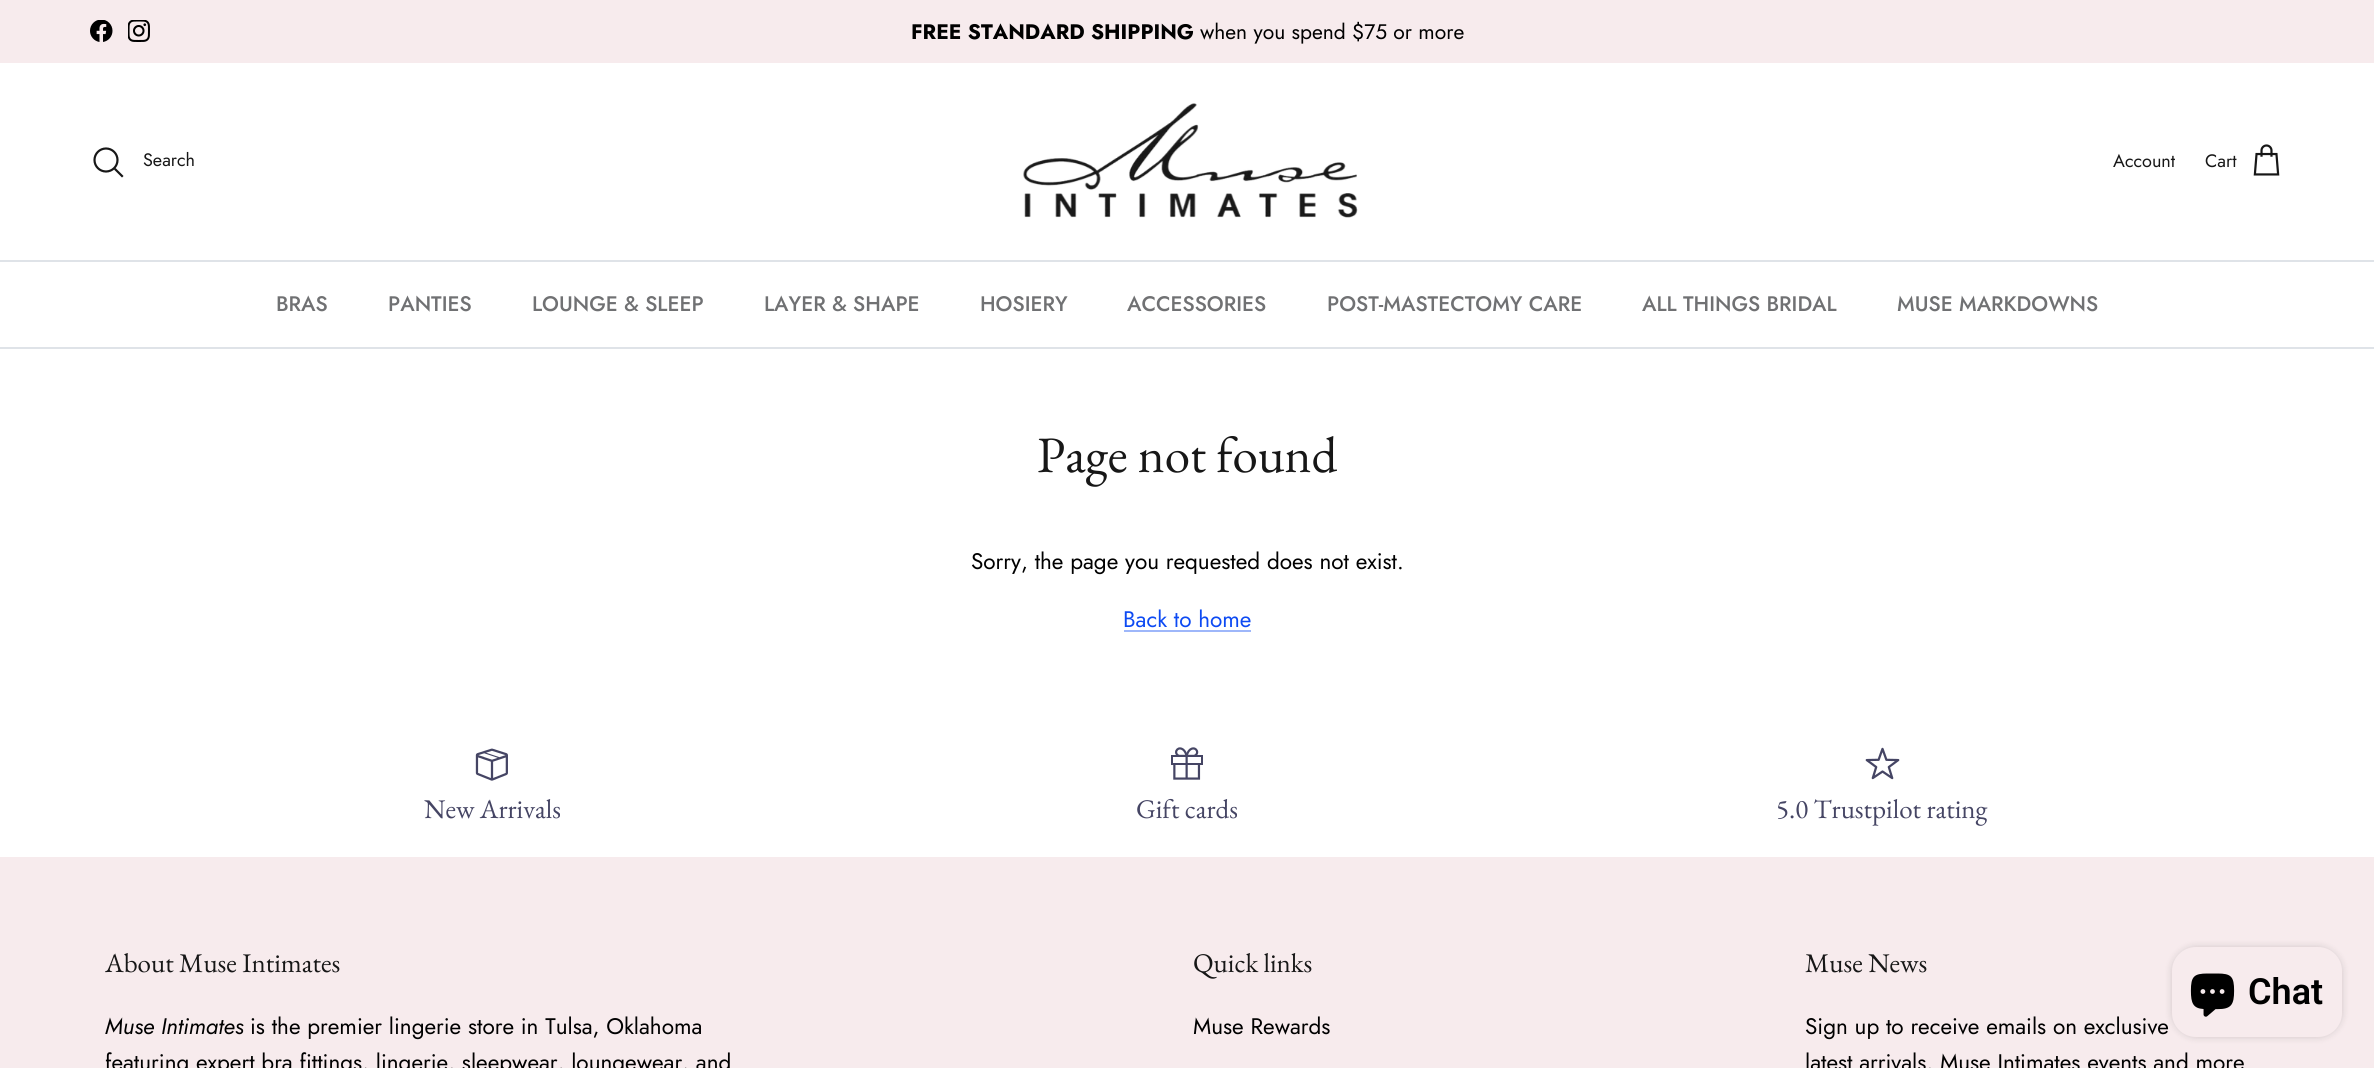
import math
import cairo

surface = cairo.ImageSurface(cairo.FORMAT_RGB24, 2374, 1068)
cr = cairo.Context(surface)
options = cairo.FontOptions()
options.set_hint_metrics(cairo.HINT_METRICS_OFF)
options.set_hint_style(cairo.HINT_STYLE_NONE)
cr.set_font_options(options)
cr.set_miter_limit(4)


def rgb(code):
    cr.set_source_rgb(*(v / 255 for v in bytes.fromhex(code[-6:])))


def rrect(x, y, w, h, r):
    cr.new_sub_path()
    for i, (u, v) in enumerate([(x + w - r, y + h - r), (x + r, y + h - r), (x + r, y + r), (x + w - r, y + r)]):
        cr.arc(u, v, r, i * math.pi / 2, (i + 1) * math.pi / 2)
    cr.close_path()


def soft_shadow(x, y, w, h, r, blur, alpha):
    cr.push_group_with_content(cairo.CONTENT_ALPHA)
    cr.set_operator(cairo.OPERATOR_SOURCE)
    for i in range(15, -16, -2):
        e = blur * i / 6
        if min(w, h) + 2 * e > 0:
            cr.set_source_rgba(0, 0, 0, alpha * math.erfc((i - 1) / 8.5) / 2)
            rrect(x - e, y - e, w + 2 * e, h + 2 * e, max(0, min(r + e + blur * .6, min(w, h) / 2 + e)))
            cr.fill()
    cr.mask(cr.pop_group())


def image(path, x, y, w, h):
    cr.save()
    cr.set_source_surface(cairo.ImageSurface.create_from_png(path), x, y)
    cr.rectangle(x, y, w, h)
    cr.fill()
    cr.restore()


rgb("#ffffff")
cr.paint()
rgb("#f7ebed")
cr.rectangle(0, 0, 2374, 63)
cr.fill()
image("img/1.png", 90, 20, 23, 22)
image("img/2.png", 128, 20, 22, 22)
rgb("#dfe3e8")
cr.rectangle(0, 260, 2374, 2)
cr.fill()
cr.arc(106, 160, 11.5, 0, 2 * math.pi)
rgb("#171717")
cr.set_line_width(2.2)
cr.stroke()
cr.new_path()
cr.move_to(115.5, 169.5)
cr.line_to(122, 176)
cr.set_line_cap(cairo.LINE_CAP_SQUARE)
cr.stroke()
image("img/3.png", 1023, 103, 335, 115)
image("img/4.png", 2253, 144, 27, 32)
rgb("#dfe3e8")
cr.rectangle(0, 347, 2374, 2)
cr.fill()
rgb("#9eb7fa")
cr.rectangle(1124, 630, 127, 2)
cr.fill()
image("img/5.png", 475, 748, 33, 33)
image("img/6.png", 1171, 747, 32, 33)
image("img/7.png", 1865, 747, 35, 33)
rgb("#f7ebed")
cr.rectangle(0, 857, 2374, 211)
cr.fill()
rgb("#000000")
soft_shadow(2172, 947, 170, 90, 24, 4, 0.15)
rgb("#f7ebed")
rrect(2172, 947, 170, 90, 24)
cr.fill()
image("img/8.png", 2190, 973, 45, 44)
cr.select_font_face("Jost", cairo.FONT_SLANT_NORMAL, cairo.FONT_WEIGHT_BOLD)
cr.set_font_size(21)
rgb("#000000")
cr.move_to(911, 39)
cr.show_text("FREE STANDARD SHIPPING")
cr.select_font_face("Jost")
cr.move_to(1200, 39)
cr.show_text("when you spend $75 or more")
cr.set_font_size(18)
rgb("#171717")
for x, y, s in [
    (143, 166, "Search"),
    (2113, 167, "Account"),
    (2205, 167, "Cart"),
]:
    cr.move_to(x, y)
    cr.show_text(s)
cr.select_font_face("Jost Medium")
cr.set_font_size(21)
rgb("#707173")
for x, y, s in [
    (276, 311, "BRAS"),
    (388, 311, "PANTIES"),
    (532, 311, "LOUNGE & SLEEP"),
    (764, 311, "LAYER & SHAPE"),
    (980, 311, "HOSIERY"),
    (1127, 311, "ACCESSORIES"),
    (1327, 311, "POST-MASTECTOMY CARE"),
    (1642, 311, "ALL THINGS BRIDAL"),
    (1897, 311, "MUSE MARKDOWNS"),
]:
    cr.move_to(x, y)
    cr.show_text(s)
cr.select_font_face("EB Garamond")
cr.set_font_size(51)
rgb("#171717")
cr.move_to(1037, 472)
cr.show_text("Page not found")
cr.select_font_face("Jost")
cr.set_font_size(22.5)
rgb("#000000")
cr.move_to(971, 569)
cr.show_text("Sorry, the page you requested does not exist.")
rgb("#0d4af3")
cr.move_to(1123, 627)
cr.show_text("Back to home")
cr.select_font_face("EB Garamond")
cr.set_font_size(27)
rgb("#454564")
for x, y, s in [
    (424, 818, "New Arrivals"),
    (1136, 818, "Gift cards"),
    (1776, 818, "5.0 Trustpilot rating"),
]:
    cr.move_to(x, y)
    cr.show_text(s)
rgb("#171717")
cr.move_to(105, 972)
cr.show_text("About Muse Intimates")
cr.select_font_face("Jost", cairo.FONT_SLANT_ITALIC)
cr.set_font_size(22.5)
rgb("#000000")
cr.move_to(105, 1034)
cr.show_text("Muse Intimates")
cr.select_font_face("Jost")
cr.move_to(250, 1034)
cr.show_text("is the premier lingerie store in Tulsa, Oklahoma")
cr.move_to(105, 1070)
cr.show_text("featuring expert bra fittings, lingerie, sleepwear, loungewear, and")
cr.select_font_face("EB Garamond")
cr.set_font_size(27)
rgb("#171717")
cr.move_to(1193, 972)
cr.show_text("Quick links")
cr.select_font_face("Jost")
cr.set_font_size(22.5)
rgb("#000000")
cr.move_to(1193, 1034)
cr.show_text("Muse Rewards")
cr.select_font_face("EB Garamond")
cr.set_font_size(27)
rgb("#171717")
cr.move_to(1805, 972)
cr.show_text("Muse News")
cr.select_font_face("Jost")
cr.set_font_size(22.5)
rgb("#000000")
cr.move_to(1805, 1034)
cr.show_text("Sign up to receive emails on exclusive")
cr.move_to(1805, 1070)
cr.show_text("latest arrivals, Muse Intimates events and more")
cr.select_font_face("Roboto SemiBold")
cr.set_font_size(36)
cr.move_to(2248, 1004)
cr.show_text("Chat")
surface.write_to_png("page.png")
